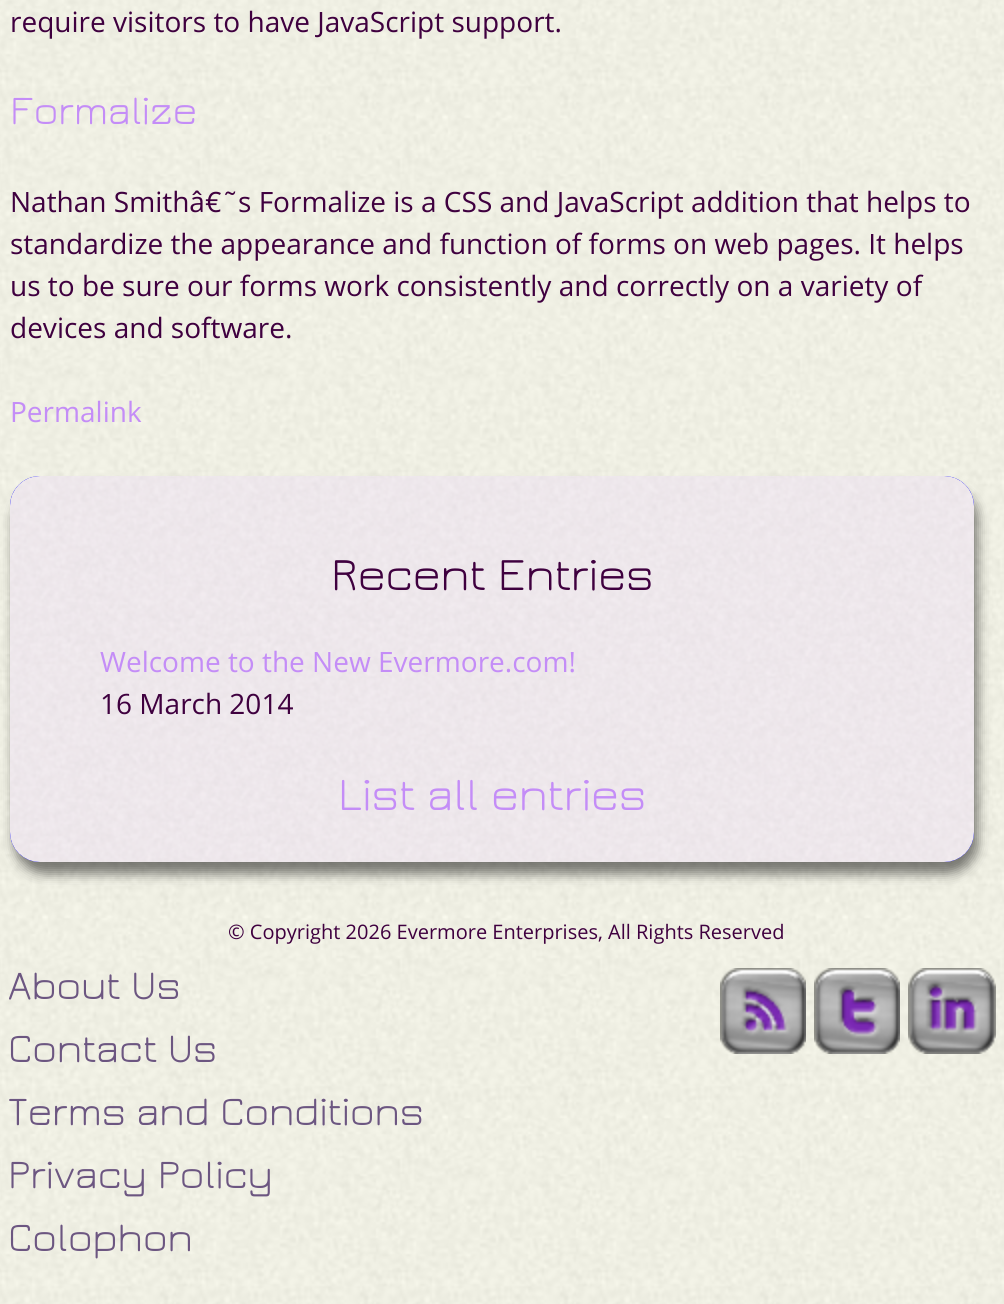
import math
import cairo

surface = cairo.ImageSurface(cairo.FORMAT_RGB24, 1004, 1304)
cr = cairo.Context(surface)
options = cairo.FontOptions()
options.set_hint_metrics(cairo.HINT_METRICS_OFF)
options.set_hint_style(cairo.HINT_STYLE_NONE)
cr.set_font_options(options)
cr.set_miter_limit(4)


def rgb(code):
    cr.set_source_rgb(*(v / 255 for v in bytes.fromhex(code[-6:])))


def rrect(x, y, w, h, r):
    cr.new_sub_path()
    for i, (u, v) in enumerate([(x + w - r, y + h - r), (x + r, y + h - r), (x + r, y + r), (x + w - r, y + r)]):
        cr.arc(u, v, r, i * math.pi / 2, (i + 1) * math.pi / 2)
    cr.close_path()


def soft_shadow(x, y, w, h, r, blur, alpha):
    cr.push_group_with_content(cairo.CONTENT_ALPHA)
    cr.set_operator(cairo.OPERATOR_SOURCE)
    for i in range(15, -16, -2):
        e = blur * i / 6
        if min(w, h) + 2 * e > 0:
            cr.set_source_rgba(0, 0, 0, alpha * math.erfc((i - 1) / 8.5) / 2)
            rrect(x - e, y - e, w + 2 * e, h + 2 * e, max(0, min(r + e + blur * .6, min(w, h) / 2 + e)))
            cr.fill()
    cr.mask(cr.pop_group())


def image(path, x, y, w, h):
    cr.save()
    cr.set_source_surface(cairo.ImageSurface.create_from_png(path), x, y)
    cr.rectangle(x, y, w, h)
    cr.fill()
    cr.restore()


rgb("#ffffff")
cr.paint()
image("img/1.png", 0, 0, 1004, 1304)
rgb("#000000")
soft_shadow(14, 488, 964, 386, 30, 6, 0.5)
rgb("#0000ff")
rrect(10, 476, 964, 386, 30)
cr.fill()
image("img/2.png", 10, 476, 964, 386)
image("img/3.png", 720, 968, 86, 86)
image("img/4.png", 814, 968, 86, 86)
image("img/5.png", 908, 968, 88, 86)
cr.select_font_face("Open Sans")
cr.set_font_size(28)
rgb("#3f003f")
cr.move_to(10, 32)
cr.show_text("require visitors to have JavaScript support.")
cr.select_font_face("Jura")
cr.set_font_size(42)
rgb("#c48df7")
cr.move_to(10, 124)
cr.show_text("Formalize")
cr.select_font_face("Open Sans")
cr.set_font_size(28)
rgb("#3f003f")
for x, y, s in [
    (10, 212, "Nathan Smithâ€˜s Formalize is a CSS and JavaScript addition that helps to"),
    (10, 254, "standardize the appearance and function of forms on web pages. It helps"),
    (10, 296, "us to be sure our forms work consistently and correctly on a variety of"),
    (10, 338, "devices and software."),
]:
    cr.move_to(x, y)
    cr.show_text(s)
rgb("#c48df7")
cr.move_to(10, 422)
cr.show_text("Permalink")
cr.select_font_face("Jura")
cr.set_font_size(48)
rgb("#3f003f")
cr.move_to(331, 590)
cr.show_text("Recent Entries")
cr.select_font_face("Open Sans")
cr.set_font_size(28)
rgb("#c48df7")
cr.move_to(100, 672)
cr.show_text("Welcome to the New Evermore.com!")
rgb("#3f003f")
cr.move_to(100, 714)
cr.show_text("16 March 2014")
cr.select_font_face("Jura")
cr.set_font_size(48)
rgb("#c48df7")
cr.move_to(338, 810)
cr.show_text("List all entries")
cr.select_font_face("Open Sans")
cr.set_font_size(20)
rgb("#3f003f")
cr.move_to(228, 939)
cr.show_text("© Copyright 2026 Evermore Enterprises, All Rights Reserved")
cr.select_font_face("Jura")
cr.set_font_size(42)
rgb("#6c5681")
for x, y, s in [
    (8, 999, "About Us"),
    (8, 1062, "Contact Us"),
    (8, 1125, "Terms and Conditions"),
    (8, 1188, "Privacy Policy"),
    (8, 1251, "Colophon"),
]:
    cr.move_to(x, y)
    cr.show_text(s)
surface.write_to_png("page.png")
